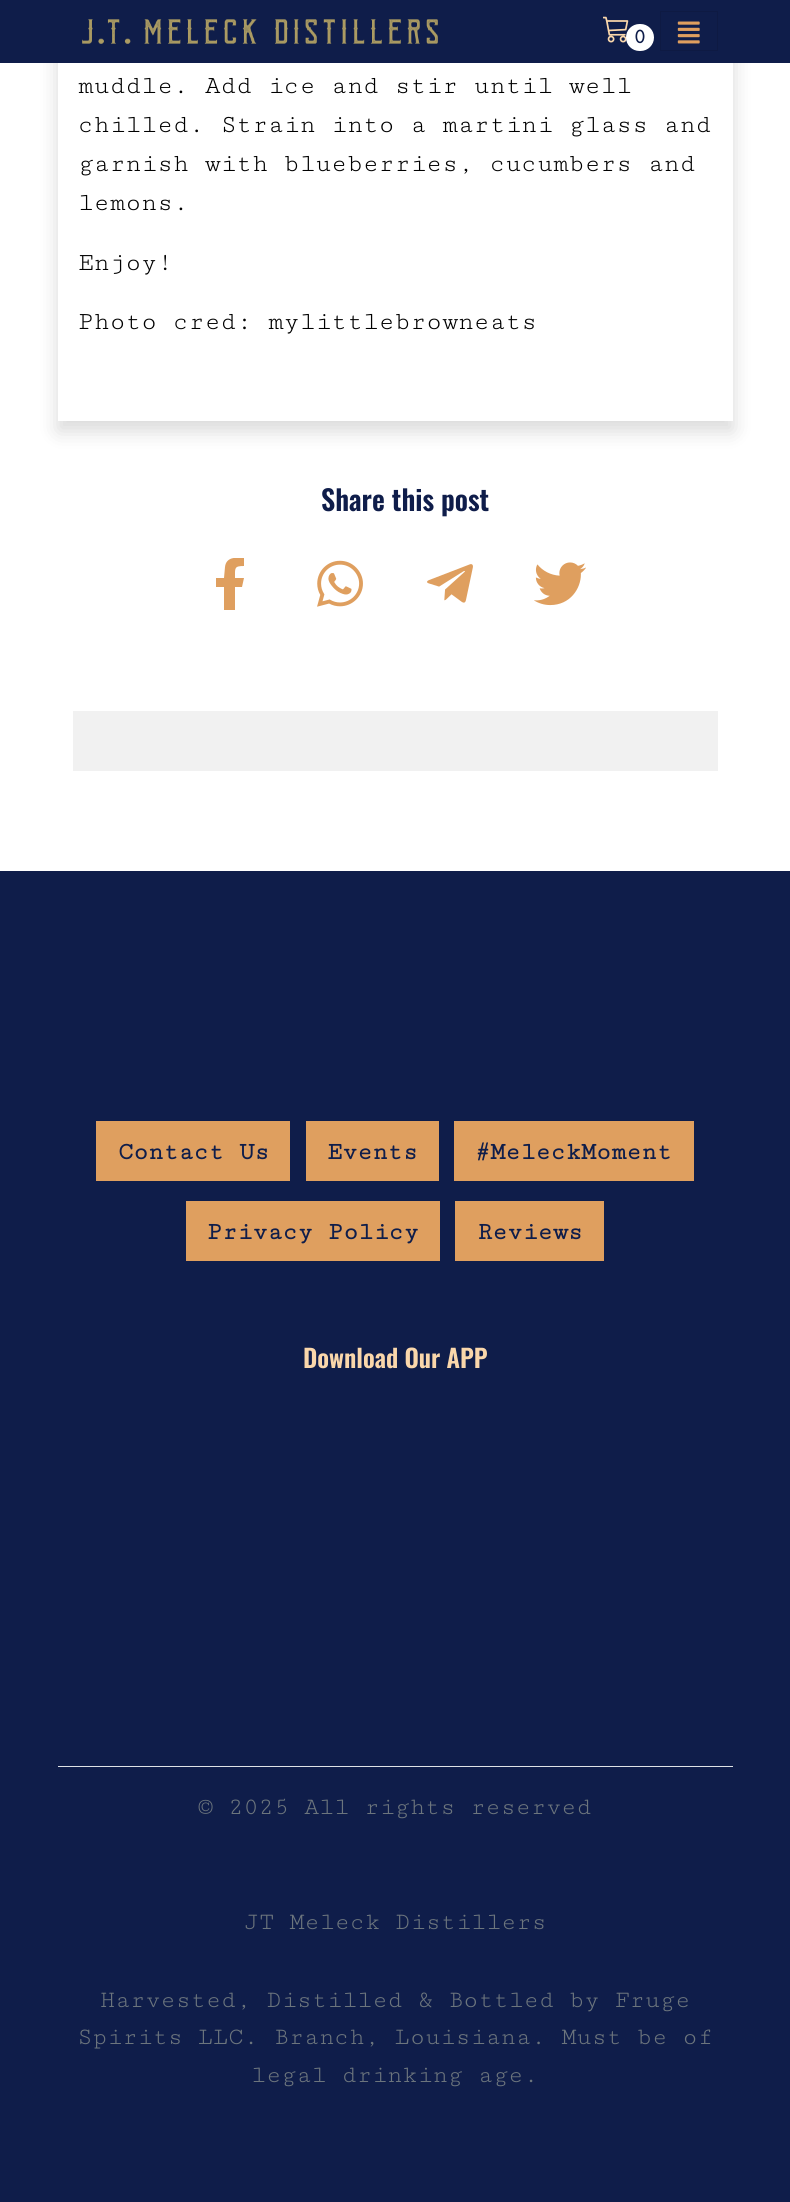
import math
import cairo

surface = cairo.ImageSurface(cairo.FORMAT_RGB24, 790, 2202)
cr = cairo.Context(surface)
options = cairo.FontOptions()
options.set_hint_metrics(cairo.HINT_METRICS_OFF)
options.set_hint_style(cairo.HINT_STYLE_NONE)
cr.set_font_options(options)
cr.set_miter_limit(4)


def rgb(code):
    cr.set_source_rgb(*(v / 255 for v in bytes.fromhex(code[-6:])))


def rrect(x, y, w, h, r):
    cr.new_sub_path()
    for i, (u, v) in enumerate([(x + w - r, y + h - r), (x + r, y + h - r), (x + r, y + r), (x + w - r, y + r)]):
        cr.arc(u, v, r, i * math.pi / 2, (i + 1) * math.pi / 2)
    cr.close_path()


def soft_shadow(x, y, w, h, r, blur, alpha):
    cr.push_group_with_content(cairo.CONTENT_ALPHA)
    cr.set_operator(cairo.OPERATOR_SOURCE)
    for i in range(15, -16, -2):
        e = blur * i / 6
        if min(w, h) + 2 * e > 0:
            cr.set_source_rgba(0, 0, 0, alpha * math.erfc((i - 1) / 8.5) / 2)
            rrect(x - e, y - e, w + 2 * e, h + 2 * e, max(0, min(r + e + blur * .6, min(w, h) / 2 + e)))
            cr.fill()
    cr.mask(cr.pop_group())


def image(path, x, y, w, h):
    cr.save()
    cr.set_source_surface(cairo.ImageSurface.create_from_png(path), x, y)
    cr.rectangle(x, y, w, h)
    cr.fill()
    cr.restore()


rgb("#ffffff")
cr.paint()
rgb("#000000")
soft_shadow(58, -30, 675, 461, 0, 10, 0.15)
rgb("#0f1d4a")
cr.rectangle(0, 0, 790, 63)
cr.fill()
image("img/1.png", 82, 19, 356, 25)
image("img/2.png", 603, 16, 26, 27)
rgb("#ffffff")
rrect(626, 24, 28, 27, 13.5)
cr.fill()
cr.rectangle(660.5, 11.5, 57, 39)
rgb("#0e1a43")
cr.set_line_width(1)
cr.stroke()
image("img/3.png", 677, 21, 23, 23)
rgb("#ffffff")
cr.rectangle(58, 63, 675, 358)
cr.fill()
cr.save()
cr.rectangle(204, 558, 52, 52)
cr.clip()
rgb("#df9f5f")
cr.new_path()
cr.move_to(242, 587)
cr.line_to(244, 578)
cr.line_to(235, 578)
cr.curve_to(235, 568, 234, 566, 244, 566)
cr.line_to(244, 558)
cr.curve_to(236, 557, 226, 557, 225, 567)
cr.line_to(224, 578)
cr.line_to(216, 578)
cr.line_to(216, 587)
cr.line_to(224, 587)
cr.line_to(224, 610)
cr.line_to(235, 610)
cr.line_to(235, 587)
cr.close_path()
cr.fill()
cr.restore()
image("img/4.png", 317, 560, 46, 47)
image("img/5.png", 427, 564, 46, 39)
image("img/6.png", 534, 562, 52, 44)
for x, y, w, h, color in [
    (73, 711, 645, 60, "#f1f1f1"),
    (0, 871, 790, 1331, "#0f1d4a"),
    (58, 1766, 675, 1, "#dee2e6"),
    (96, 1121, 194, 60, "#df9f5f"),
    (306, 1121, 133, 60, "#df9f5f"),
    (454, 1121, 240, 60, "#df9f5f"),
    (186, 1201, 254, 60, "#df9f5f"),
    (455, 1201, 149, 60, "#df9f5f"),
]:
    rgb(color)
    cr.rectangle(x, y, w, h)
    cr.fill()
cr.select_font_face("Cutive Mono", cairo.FONT_SLANT_NORMAL, cairo.FONT_WEIGHT_BOLD)
cr.set_font_size(22)
rgb("#0f1d4a")
cr.move_to(633, 43)
cr.show_text("0")
cr.select_font_face("Cutive Mono")
cr.set_font_size(26.15)
rgb("#000000")
for x, y, s in [
    (78, 93, "muddle. Add ice and stir until well"),
    (78, 132, "chilled. Strain into a martini glass and"),
    (78, 171, "garnish with blueberries, cucumbers and"),
    (78, 210, "lemons."),
    (78, 270, "Enjoy!"),
    (78, 329, "Photo cred: mylittlebrowneats"),
]:
    cr.move_to(x, y)
    cr.show_text(s)
cr.select_font_face("Oswald SemiBold")
cr.set_font_size(28)
rgb("#0f1d4a")
cr.move_to(321, 511)
cr.show_text("Share this post")
cr.select_font_face("Cutive Mono", cairo.FONT_SLANT_NORMAL, cairo.FONT_WEIGHT_BOLD)
cr.set_font_size(25)
for x, y, s in [
    (118, 1159, "Contact Us"),
    (327, 1159, "Events"),
    (475, 1159, "#MeleckMoment"),
    (207, 1239, "Privacy Policy"),
    (477, 1239, "Reviews"),
]:
    cr.move_to(x, y)
    cr.show_text(s)
cr.select_font_face("Oswald SemiBold")
rgb("#fad7ab")
cr.move_to(303, 1368)
cr.show_text("Download Our APP")
cr.select_font_face("Cutive Mono")
rgb("#6c757d")
for x, y, s in [
    (198, 1814, "© 2025 All rights reserved"),
    (244, 1929, "JT Meleck Distillers"),
    (100, 2007, "Harvested, Distilled & Bottled by Fruge"),
    (77, 2044, "Spirits LLC. Branch, Louisiana. Must be of"),
    (251, 2082, "legal drinking age."),
]:
    cr.move_to(x, y)
    cr.show_text(s)
surface.write_to_png("page.png")
